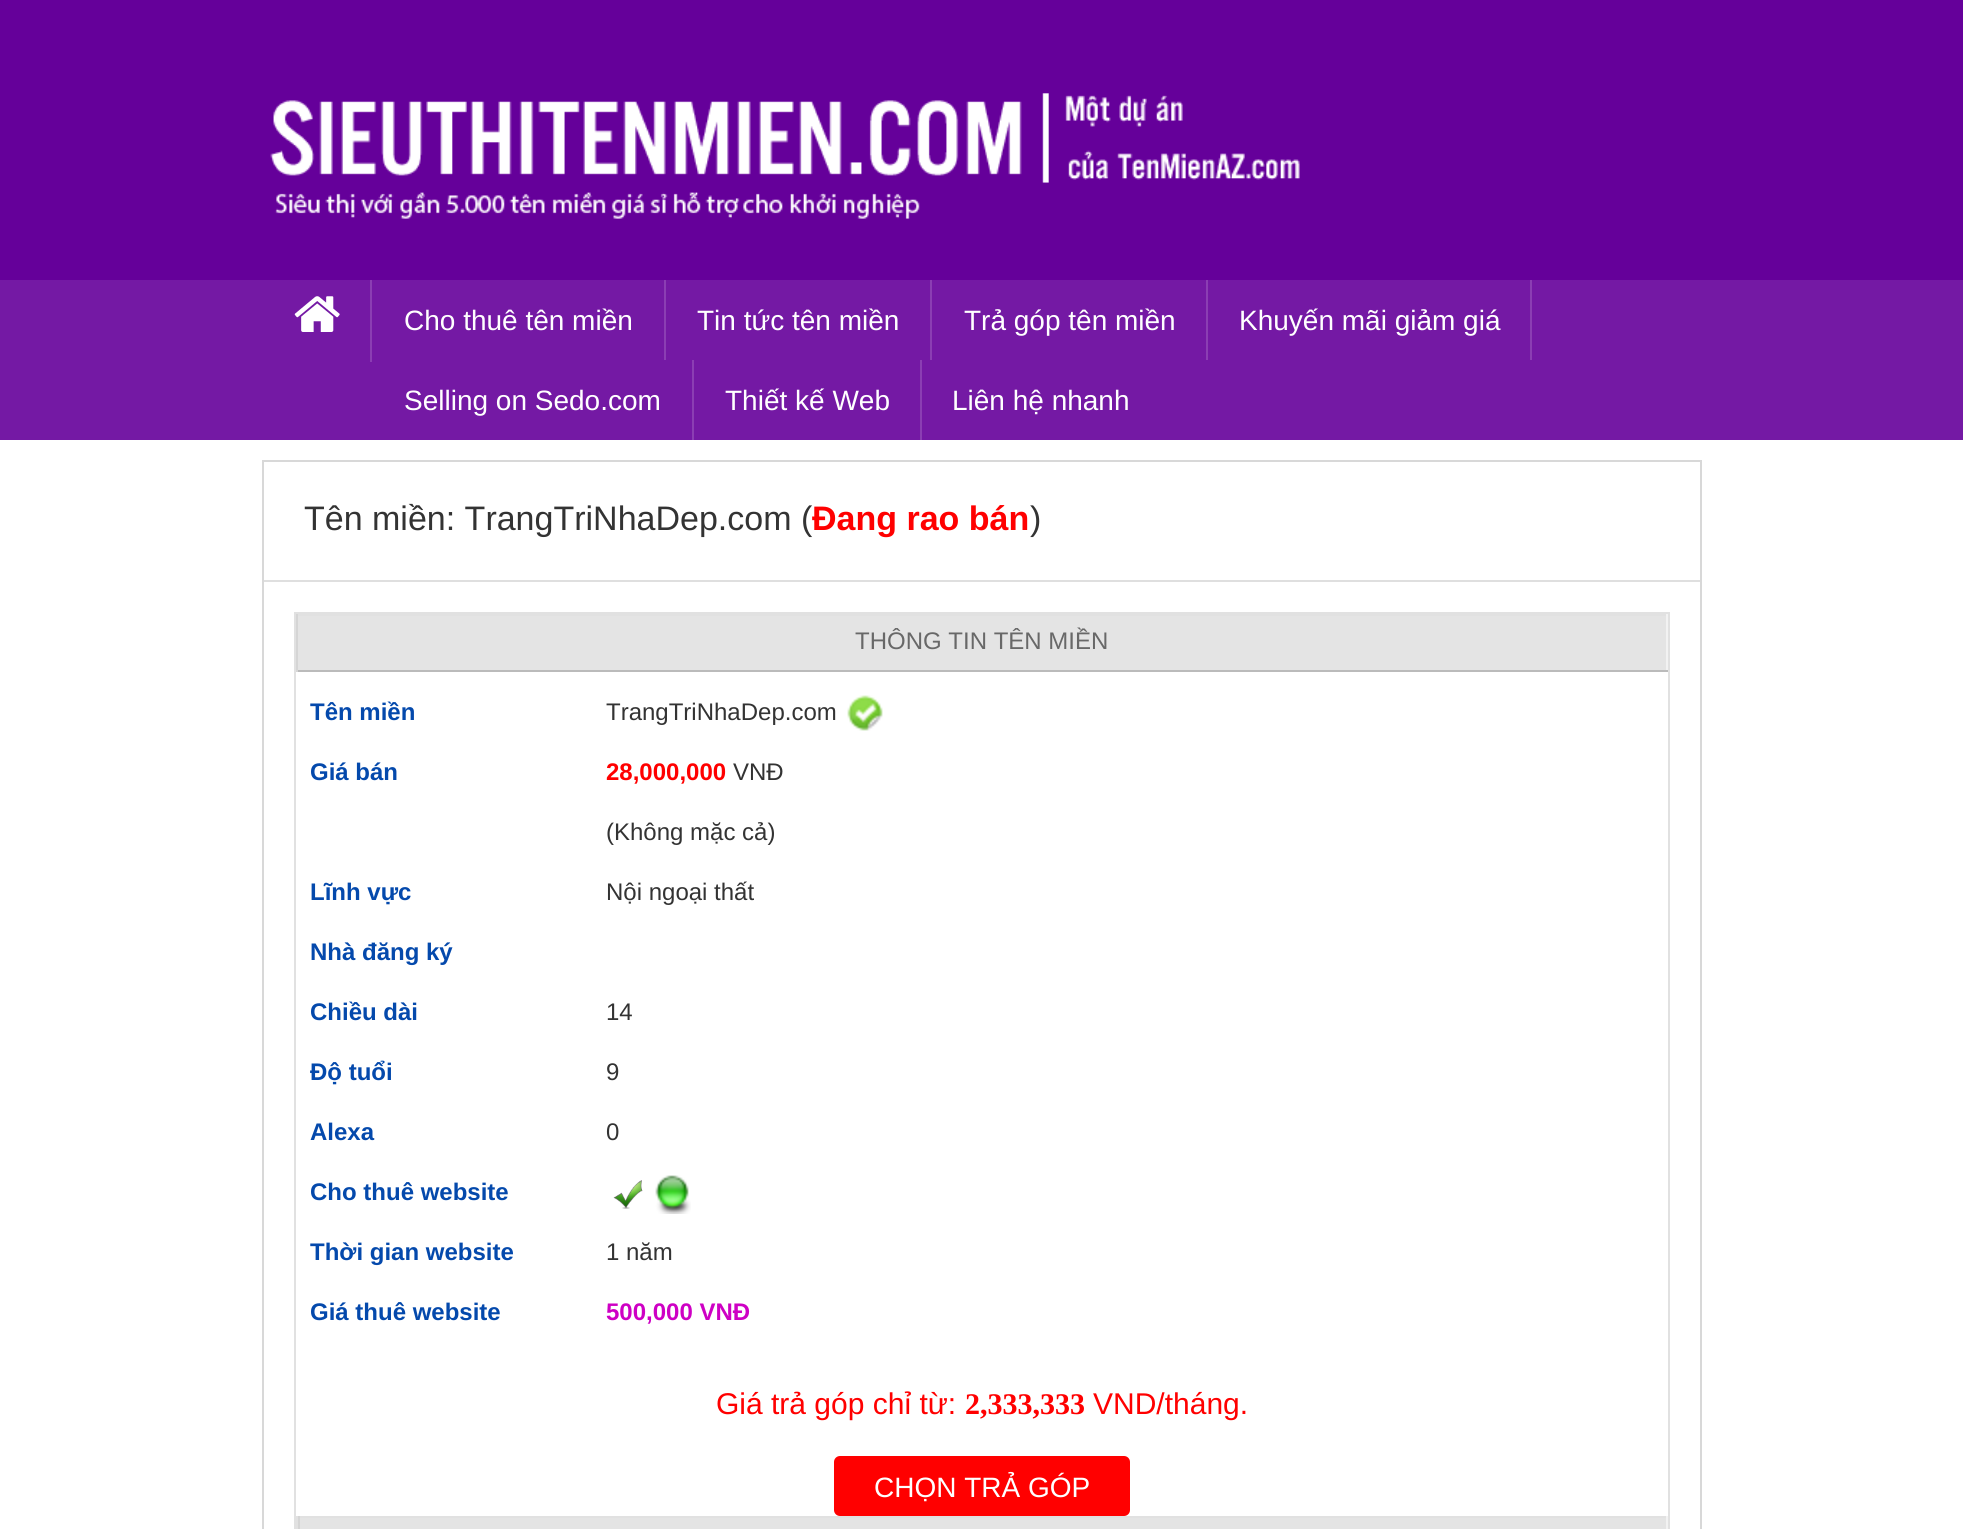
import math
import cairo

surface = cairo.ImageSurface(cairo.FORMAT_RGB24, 1963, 1529)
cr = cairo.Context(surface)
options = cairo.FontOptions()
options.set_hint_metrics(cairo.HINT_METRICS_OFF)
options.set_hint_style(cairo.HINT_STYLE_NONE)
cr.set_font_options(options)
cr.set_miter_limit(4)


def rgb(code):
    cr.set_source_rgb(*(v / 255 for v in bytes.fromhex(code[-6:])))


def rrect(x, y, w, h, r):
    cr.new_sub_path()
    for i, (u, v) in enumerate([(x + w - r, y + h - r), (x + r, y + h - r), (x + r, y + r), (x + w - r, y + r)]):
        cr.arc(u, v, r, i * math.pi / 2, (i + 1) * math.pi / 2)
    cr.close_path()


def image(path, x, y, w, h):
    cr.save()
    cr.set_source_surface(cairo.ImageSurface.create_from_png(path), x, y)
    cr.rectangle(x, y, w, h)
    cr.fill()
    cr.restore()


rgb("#ffffff")
cr.paint()
rgb("#65009a")
cr.rectangle(0, 0, 1963, 280)
cr.fill()
image("img/1.png", 270, 93, 1030, 126)
rgb("#7419a4")
cr.rectangle(0, 280, 1963, 160)
cr.fill()
rgb("#8b3eb3")
cr.rectangle(370, 280, 2, 82)
cr.fill()
image("img/2.png", 294, 296, 46, 36)
for x, y, w, h, color in [
    (664, 280, 2, 80, "#8b3eb3"),
    (930, 280, 2, 80, "#8b3eb3"),
    (1206, 280, 2, 80, "#8b3eb3"),
    (1530, 280, 2, 80, "#8b3eb3"),
    (692, 360, 2, 80, "#8b3eb3"),
    (920, 360, 2, 80, "#8b3eb3"),
]:
    rgb(color)
    cr.rectangle(x, y, w, h)
    cr.fill()
cr.rectangle(263, 461, 1438, 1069)
rgb("#d8d8d8")
cr.stroke()
rgb("#dfdfdf")
cr.rectangle(264, 580, 1436, 2)
cr.fill()
cr.rectangle(295, 613, 1374, 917)
rgb("#e1e1e1")
cr.stroke()
for x, y, w, h, color in [
    (298, 616, 1368, 54, "#e4e4e4"),
    (296, 614, 1372, 2, "#e1e1e1"),
    (1666, 614, 2, 58, "#f2f2f2"),
    (296, 670, 1372, 2, "#bbbbbb"),
    (296, 614, 2, 58, "#d5d5d5"),
]:
    rgb(color)
    cr.rectangle(x, y, w, h)
    cr.fill()
image("img/3.png", 847, 695, 36, 36)
image("img/4.png", 613, 1180, 30, 29)
image("img/5.png", 655, 1175, 36, 39)
rgb("#ff0000")
rrect(834, 1456, 296, 60, 6)
cr.fill()
for x, y, w, h, color in [
    (296, 1516, 2, 13, "#e1e1e1"),
    (300, 1518, 1366, 11, "#e4e4e4"),
    (298, 1516, 1370, 2, "#e1e1e1"),
    (1666, 1516, 2, 13, "#f2f2f2"),
    (298, 1516, 2, 13, "#d5d5d5"),
]:
    rgb(color)
    cr.rectangle(x, y, w, h)
    cr.fill()
cr.select_font_face("Liberation Sans")
cr.set_font_size(28)
rgb("#ffffff")
for x, y, s in [
    (404, 330, "Cho thuê tên miền"),
    (697, 330, "Tin tức tên miền"),
    (964, 330, "Trả góp tên miền"),
    (1239, 330, "Khuyến mãi giảm giá"),
    (404, 410, "Selling on Sedo.com"),
    (725, 410, "Thiết kế Web"),
    (952, 410, "Liên hệ nhanh"),
]:
    cr.move_to(x, y)
    cr.show_text(s)
cr.set_font_size(34)
rgb("#333333")
cr.move_to(304, 530)
cr.show_text("Tên miền: TrangTriNhaDep.com (")
cr.select_font_face("Liberation Sans", cairo.FONT_SLANT_NORMAL, cairo.FONT_WEIGHT_BOLD)
rgb("#ff0000")
cr.move_to(812, 530)
cr.show_text("Đang rao bán")
cr.select_font_face("Liberation Sans")
rgb("#333333")
cr.move_to(1030, 530)
cr.show_text(")")
cr.set_font_size(24)
rgb("#686868")
cr.move_to(855, 649)
cr.show_text("THÔNG TIN TÊN MIỀN")
cr.select_font_face("Liberation Sans", cairo.FONT_SLANT_NORMAL, cairo.FONT_WEIGHT_BOLD)
rgb("#0449ac")
cr.move_to(310, 720)
cr.show_text("Tên miền")
cr.select_font_face("Liberation Sans")
rgb("#333333")
cr.move_to(606, 720)
cr.show_text("TrangTriNhaDep.com")
cr.select_font_face("Liberation Sans", cairo.FONT_SLANT_NORMAL, cairo.FONT_WEIGHT_BOLD)
rgb("#0449ac")
cr.move_to(310, 780)
cr.show_text("Giá bán")
rgb("#ff0000")
cr.move_to(606, 780)
cr.show_text("28,000,000")
cr.select_font_face("Liberation Sans")
rgb("#333333")
cr.move_to(733, 780)
cr.show_text("VNĐ")
cr.move_to(606, 840)
cr.show_text("(Không mặc cả)")
cr.select_font_face("Liberation Sans", cairo.FONT_SLANT_NORMAL, cairo.FONT_WEIGHT_BOLD)
rgb("#0449ac")
cr.move_to(310, 900)
cr.show_text("Lĩnh vực")
cr.select_font_face("Liberation Sans")
rgb("#333333")
cr.move_to(606, 900)
cr.show_text("Nội ngoại thất")
cr.select_font_face("Liberation Sans", cairo.FONT_SLANT_NORMAL, cairo.FONT_WEIGHT_BOLD)
rgb("#0449ac")
cr.move_to(310, 960)
cr.show_text("Nhà đăng ký")
cr.move_to(310, 1020)
cr.show_text("Chiều dài")
cr.select_font_face("Liberation Sans")
rgb("#333333")
cr.move_to(606, 1020)
cr.show_text("14")
cr.select_font_face("Liberation Sans", cairo.FONT_SLANT_NORMAL, cairo.FONT_WEIGHT_BOLD)
rgb("#0449ac")
cr.move_to(310, 1080)
cr.show_text("Độ tuổi")
cr.select_font_face("Liberation Sans")
rgb("#333333")
cr.move_to(606, 1080)
cr.show_text("9")
cr.select_font_face("Liberation Sans", cairo.FONT_SLANT_NORMAL, cairo.FONT_WEIGHT_BOLD)
rgb("#0449ac")
cr.move_to(310, 1140)
cr.show_text("Alexa")
cr.select_font_face("Liberation Sans")
rgb("#333333")
cr.move_to(606, 1140)
cr.show_text("0")
cr.select_font_face("Liberation Sans", cairo.FONT_SLANT_NORMAL, cairo.FONT_WEIGHT_BOLD)
rgb("#0449ac")
cr.move_to(310, 1200)
cr.show_text("Cho thuê website")
cr.move_to(310, 1260)
cr.show_text("Thời gian website")
cr.select_font_face("Liberation Sans")
rgb("#333333")
cr.move_to(606, 1260)
cr.show_text("1 năm")
cr.select_font_face("Liberation Sans", cairo.FONT_SLANT_NORMAL, cairo.FONT_WEIGHT_BOLD)
rgb("#0449ac")
cr.move_to(310, 1320)
cr.show_text("Giá thuê website")
rgb("#ce00c4")
cr.move_to(606, 1320)
cr.show_text("500,000 VNĐ")
cr.select_font_face("Liberation Sans")
cr.set_font_size(30)
rgb("#ff0000")
cr.move_to(716, 1414)
cr.show_text("Giá trả góp chỉ từ:")
cr.select_font_face("Liberation Serif", cairo.FONT_SLANT_NORMAL, cairo.FONT_WEIGHT_BOLD)
cr.move_to(965, 1414)
cr.show_text("2,333,333")
cr.select_font_face("Liberation Sans")
cr.move_to(1093, 1414)
cr.show_text("VND/tháng.")
cr.set_font_size(28)
rgb("#ffffff")
cr.move_to(874, 1497)
cr.show_text("CHỌN TRẢ GÓP")
surface.write_to_png("page.png")
